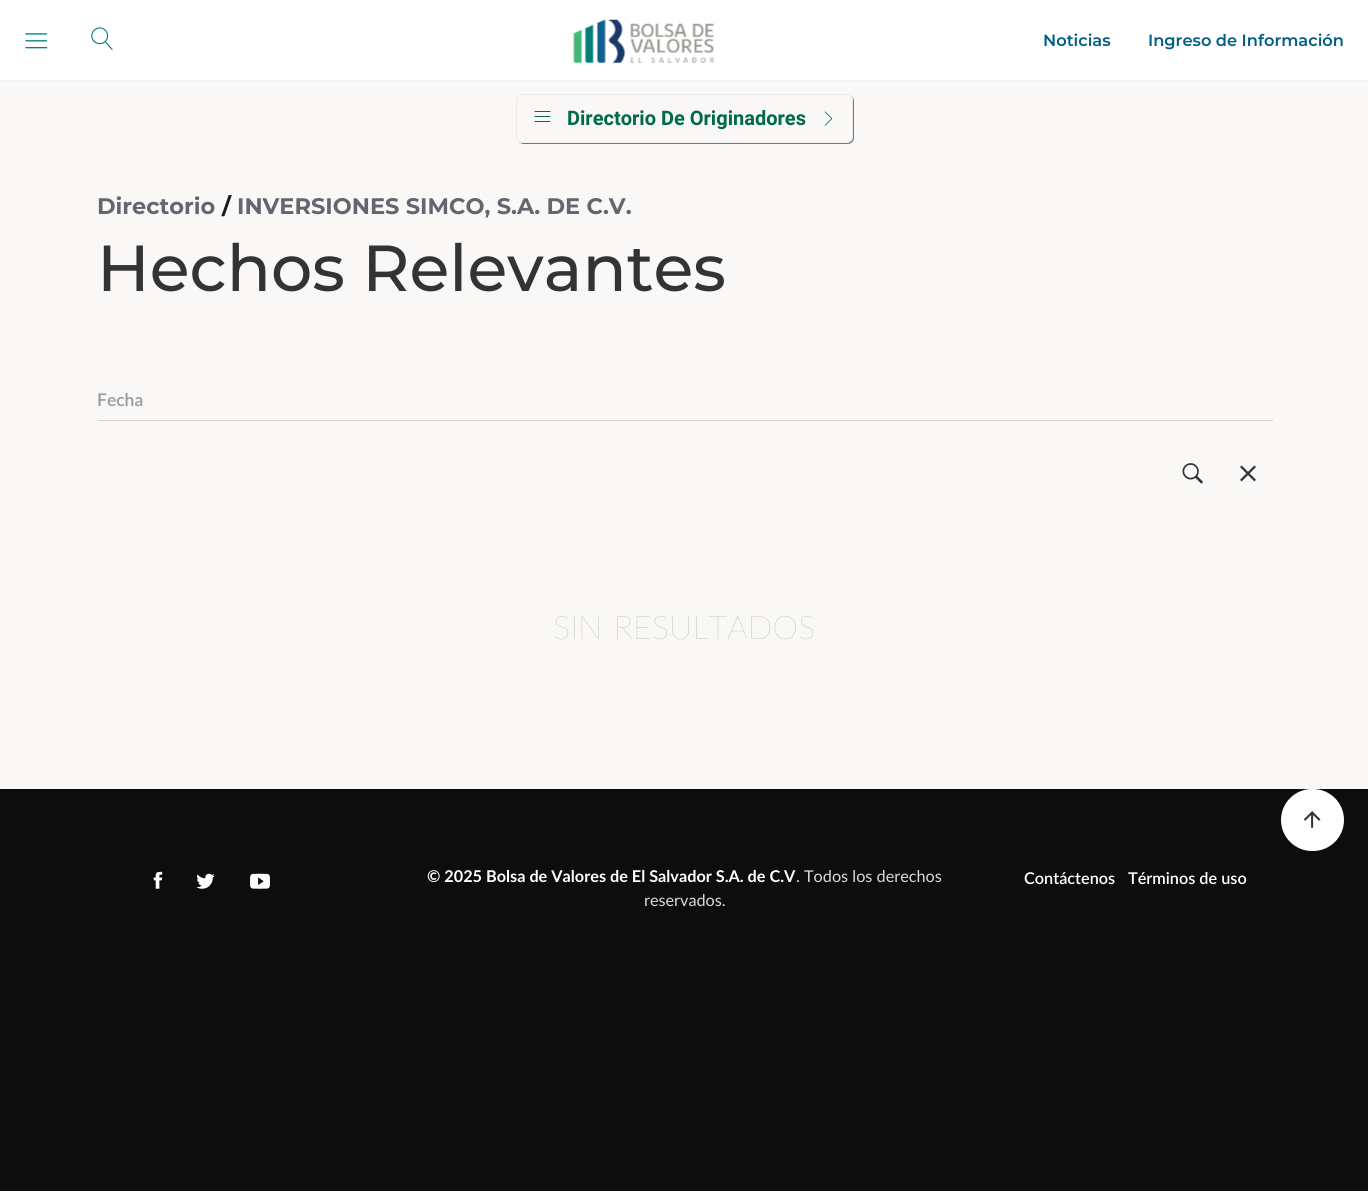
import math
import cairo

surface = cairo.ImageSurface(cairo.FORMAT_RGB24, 1368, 1191)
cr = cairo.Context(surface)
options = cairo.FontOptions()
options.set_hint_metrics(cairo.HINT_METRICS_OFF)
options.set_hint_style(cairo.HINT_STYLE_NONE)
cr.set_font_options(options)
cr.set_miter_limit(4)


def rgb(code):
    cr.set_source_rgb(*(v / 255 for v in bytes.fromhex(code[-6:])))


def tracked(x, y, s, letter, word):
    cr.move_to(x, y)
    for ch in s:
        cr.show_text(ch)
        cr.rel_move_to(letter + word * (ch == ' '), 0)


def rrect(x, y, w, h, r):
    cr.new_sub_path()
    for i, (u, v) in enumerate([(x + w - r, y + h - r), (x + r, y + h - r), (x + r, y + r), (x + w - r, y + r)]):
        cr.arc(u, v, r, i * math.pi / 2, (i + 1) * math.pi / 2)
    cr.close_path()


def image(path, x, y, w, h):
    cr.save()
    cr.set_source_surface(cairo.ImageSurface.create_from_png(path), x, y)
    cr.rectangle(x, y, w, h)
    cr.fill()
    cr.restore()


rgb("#ffffff")
cr.paint()
for x, y, w, h, color in [
    (0, 789, 1368, 402, "#0d0d0d"),
    (0, 81, 1368, 708, "#f9f8f6"),
    (0, 80, 1368, 1, "#f3f3f3"),
]:
    rgb(color)
    cr.rectangle(x, y, w, h)
    cr.fill()
image("img/1.png", 25, 33, 23, 16)
image("img/2.png", 91, 27, 22, 23)
image("img/3.png", 573, 19, 141, 45)
rgb("#777777")
cr.new_path()
cr.move_to(519, 142)
cr.curve_to(520, 143, 522, 144, 524, 144)
cr.line_to(848, 144)
cr.curve_to(851, 144, 854, 141, 854, 138)
cr.line_to(854, 101)
cr.curve_to(854, 99, 853, 97, 851, 96)
cr.curve_to(852, 97, 852, 98, 852, 100)
cr.line_to(852, 136)
cr.curve_to(852, 140, 850, 142, 846, 142)
cr.line_to(522, 142)
cr.close_path()
cr.fill()
rgb("#f9f8f6")
rrect(516.5, 94.5, 336, 48, 5.5)
cr.fill_preserve()
rgb("#edeceb")
cr.set_line_width(1)
cr.stroke()
image("img/4.png", 534, 111, 17, 11)
image("img/5.png", 824, 111, 9, 15)
rgb("#d4d3d1")
cr.rectangle(98, 420, 1175, 1)
cr.fill()
image("img/6.png", 1182, 463, 21, 21)
image("img/7.png", 1240, 465, 16, 17)
rgb("#ffffff")
rrect(1281, 789, 63, 62, 31)
cr.fill()
image("img/8.png", 1303, 811, 18, 17)
image("img/9.png", 153, 871, 10, 18)
image("img/10.png", 196, 873, 19, 16)
image("img/11.png", 250, 873, 20, 16)
cr.select_font_face("Montserrat SemiBold")
cr.set_font_size(16.25)
rgb("#005e85")
cr.move_to(1043, 46)
cr.show_text("Noticias")
cr.move_to(1148, 46)
cr.show_text("Ingreso de Información")
cr.select_font_face("Heebo", cairo.FONT_SLANT_NORMAL, cairo.FONT_WEIGHT_BOLD)
cr.set_font_size(20)
rgb("#01694c")
cr.move_to(567, 125)
cr.show_text("Directorio De Originadores")
cr.select_font_face("Montserrat", cairo.FONT_SLANT_NORMAL, cairo.FONT_WEIGHT_BOLD)
cr.set_font_size(22.5)
rgb("#64656e")
cr.move_to(97, 214)
cr.show_text("Directorio")
rgb("#1a1a1a")
cr.move_to(222, 214)
cr.show_text("/")
rgb("#64656e")
cr.move_to(237, 214)
cr.show_text("INVERSIONES SIMCO, S.A. DE C.V.")
cr.select_font_face("Montserrat Medium")
cr.set_font_size(65)
rgb("#333333")
cr.move_to(97, 291)
cr.show_text("Hechos Relevantes")
cr.select_font_face("Lato SemiBold")
cr.set_font_size(17.5)
rgb("#999999")
cr.move_to(97, 406)
cr.show_text("Fecha")
cr.select_font_face("Lato ExtraLight")
cr.set_font_size(32.5)
rgb("#afafaf")
tracked(553, 639, "SIN RESULTADOS", 0, 2)
cr.select_font_face("Lato", cairo.FONT_SLANT_NORMAL, cairo.FONT_WEIGHT_BOLD)
cr.set_font_size(16.25)
rgb("#ffffff")
cr.move_to(427, 882)
cr.show_text("© 2025 Bolsa de Valores de El Salvador S.A. de C.V")
cr.select_font_face("Lato")
rgb("#dadada")
cr.move_to(796, 882)
cr.show_text(". Todos los derechos")
cr.move_to(644, 906)
cr.show_text("reservados.")
cr.select_font_face("Lato SemiBold")
rgb("#ffffff")
cr.move_to(1024, 884)
cr.show_text("Contáctenos")
cr.move_to(1128, 884)
cr.show_text("Términos de uso")
surface.write_to_png("page.png")
